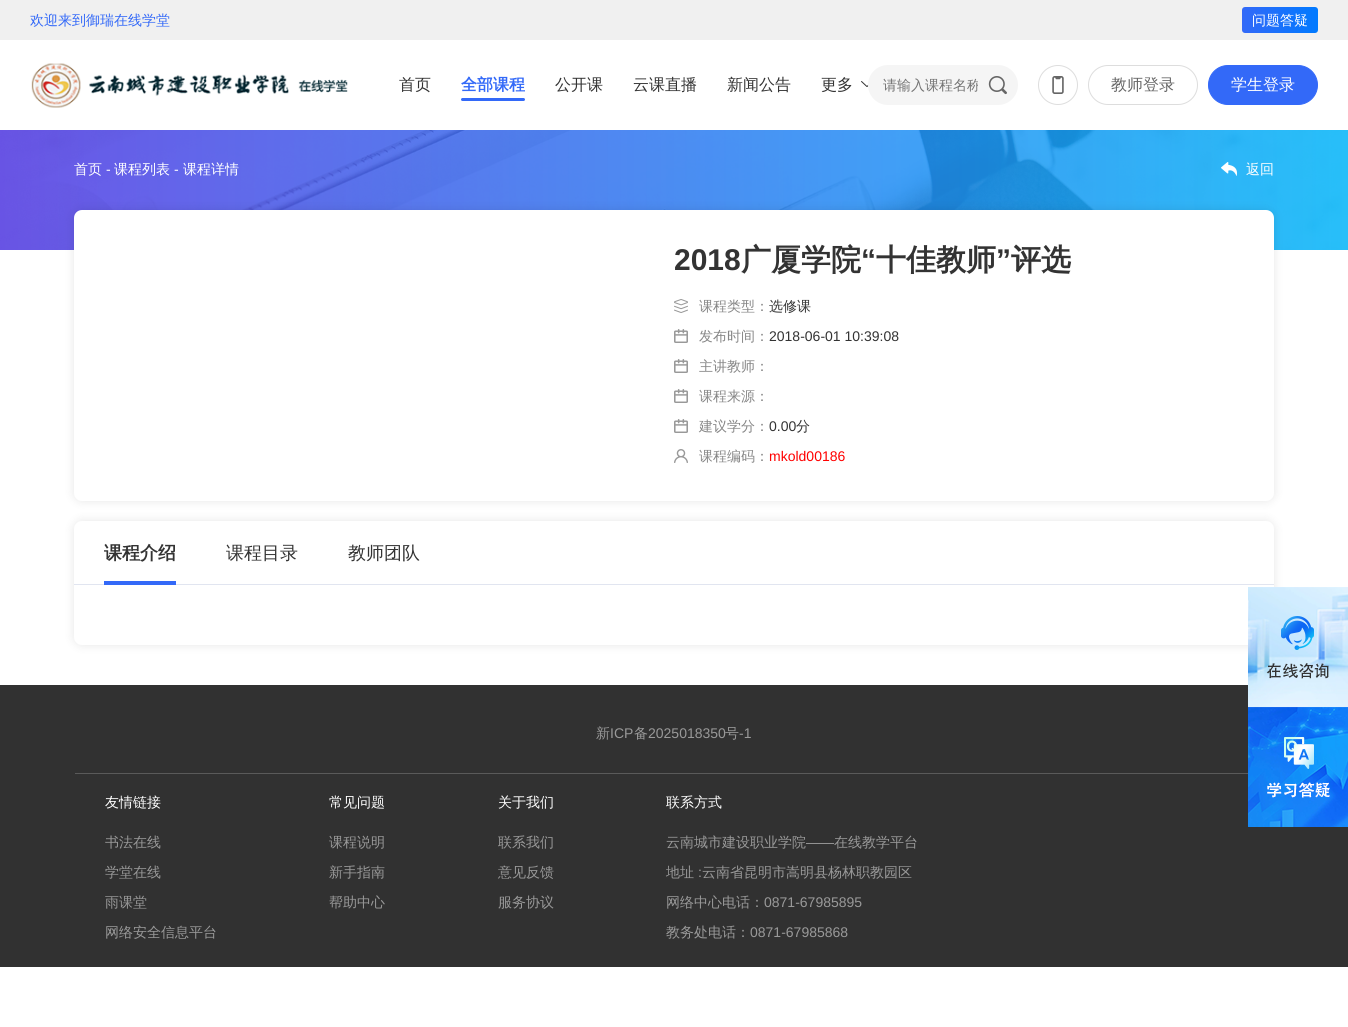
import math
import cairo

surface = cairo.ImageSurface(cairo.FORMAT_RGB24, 1348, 1027)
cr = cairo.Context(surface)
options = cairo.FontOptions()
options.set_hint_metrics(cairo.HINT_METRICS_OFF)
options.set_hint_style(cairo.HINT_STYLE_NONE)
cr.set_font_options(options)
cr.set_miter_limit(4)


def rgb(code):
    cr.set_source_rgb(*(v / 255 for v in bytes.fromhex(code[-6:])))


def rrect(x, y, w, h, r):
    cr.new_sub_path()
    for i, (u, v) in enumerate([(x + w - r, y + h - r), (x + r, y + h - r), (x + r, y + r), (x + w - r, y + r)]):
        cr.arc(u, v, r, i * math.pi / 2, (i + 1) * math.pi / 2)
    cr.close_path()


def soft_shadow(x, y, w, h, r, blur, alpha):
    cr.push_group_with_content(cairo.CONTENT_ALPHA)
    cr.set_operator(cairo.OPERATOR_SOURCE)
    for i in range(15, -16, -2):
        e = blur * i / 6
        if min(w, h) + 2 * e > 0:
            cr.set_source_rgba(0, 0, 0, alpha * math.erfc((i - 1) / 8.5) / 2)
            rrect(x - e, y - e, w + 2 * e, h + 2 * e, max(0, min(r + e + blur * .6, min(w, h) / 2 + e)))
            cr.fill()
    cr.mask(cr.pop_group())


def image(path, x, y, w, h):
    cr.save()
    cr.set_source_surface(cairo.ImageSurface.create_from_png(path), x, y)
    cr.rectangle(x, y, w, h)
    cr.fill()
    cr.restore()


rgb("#ffffff")
cr.paint()
rgb("#f0f0f0")
cr.rectangle(0, 0, 1348, 40)
cr.fill()
gradient = cairo.LinearGradient(1242, 20, 1318, 20)
gradient.add_color_stop_rgba(0, 0.2, 0.412, 0.973, 1)
gradient.add_color_stop_rgba(1, 0, 0.478, 1, 1)
cr.set_source(gradient)
rrect(1242, 7, 76, 26, 3)
cr.fill()
image("img/1.png", 31, 63, 317, 45)
rgb("#3369f8")
rrect(461, 98, 64, 3, 1.5)
cr.fill()
image("img/2.png", 861, 81, 8, 6)
rgb("#f5f5f5")
rrect(868, 65, 150, 40, 20)
cr.fill()
image("img/3.png", 988, 76, 19, 19)
cr.arc(1058, 85, 19.5, 0, 2 * math.pi)
rgb("#dddddd")
cr.set_line_width(1)
cr.stroke()
image("img/4.png", 1052, 76, 12, 18)
rrect(1088.5, 65.5, 109, 39, 19.5)
cr.stroke()
rgb("#3369f8")
rrect(1208.5, 65.5, 109, 39, 19.5)
cr.fill_preserve()
cr.stroke()
image("img/5.png", 0, 130, 1348, 120)
image("img/6.png", 1221, 162, 16, 14)
rgb("#000000")
soft_shadow(74, 210, 1200, 291, 8, 5, 0.1)
rgb("#ffffff")
rrect(74, 210, 1200, 291, 8)
cr.fill()
image("img/7.png", 674, 299, 14, 14)
image("img/8.png", 674, 329, 14, 14)
image("img/8.png", 674, 359, 14, 14)
image("img/8.png", 674, 389, 14, 14)
image("img/8.png", 674, 419, 14, 14)
image("img/9.png", 674, 449, 14, 14)
rgb("#000000")
soft_shadow(74, 521, 1200, 124, 8, 5, 0.1)
rgb("#ffffff")
rrect(74, 521, 1200, 124, 8)
cr.fill()
for x, y, w, h, color in [
    (74, 584, 1200, 1, "#e1e5f0"),
    (104, 581, 72, 4, "#3369f8"),
    (0, 685, 1348, 282, "#313131"),
    (75, 773, 1173, 1, "#5a5a5a"),
]:
    rgb(color)
    cr.rectangle(x, y, w, h)
    cr.fill()
image("img/10.png", 1248, 587, 100, 240)
cr.select_font_face("WenQuanYi Zen Hei Medium")
cr.set_font_size(14)
rgb("#3369f8")
cr.move_to(30, 25)
cr.show_text("欢迎来到御瑞在线学堂")
rgb("#ffffff")
cr.move_to(1252, 25)
cr.show_text("问题答疑")
cr.set_font_size(16)
rgb("#333333")
cr.move_to(399, 90)
cr.show_text("首页")
cr.select_font_face("WenQuanYi Zen Hei", cairo.FONT_SLANT_NORMAL, cairo.FONT_WEIGHT_BOLD)
rgb("#3369f8")
cr.move_to(461, 90)
cr.show_text("全部课程")
cr.select_font_face("WenQuanYi Zen Hei Medium")
rgb("#333333")
for x, y, s in [
    (555, 90, "公开课"),
    (633, 90, "云课直播"),
    (727, 90, "新闻公告"),
    (821, 90, "更多"),
]:
    cr.move_to(x, y)
    cr.show_text(s)
cr.save()
cr.rectangle(883, 77, 95, 18)
cr.clip()
cr.set_font_size(14)
rgb("#757575")
cr.move_to(883, 90)
cr.show_text("请输入课程名称")
cr.restore()
rgb("#666666")
cr.move_to(1111, 90)
cr.show_text("教师登录")
rgb("#ffffff")
cr.move_to(1231, 90)
cr.show_text("学生登录")
cr.set_font_size(14)
cr.move_to(74, 174)
cr.show_text("首页")
cr.select_font_face("Liberation Sans")
cr.move_to(106, 174)
cr.show_text("-")
cr.select_font_face("WenQuanYi Zen Hei Medium")
cr.move_to(114, 174)
cr.show_text("课程列表")
cr.select_font_face("Liberation Sans")
cr.move_to(174, 174)
cr.show_text("-")
cr.select_font_face("WenQuanYi Zen Hei Medium")
cr.move_to(183, 174)
cr.show_text("课程详情")
cr.move_to(1246, 174)
cr.show_text("返回")
cr.select_font_face("Liberation Sans", cairo.FONT_SLANT_NORMAL, cairo.FONT_WEIGHT_BOLD)
cr.set_font_size(30)
rgb("#333333")
cr.move_to(674, 270)
cr.show_text("2018")
cr.select_font_face("WenQuanYi Zen Hei", cairo.FONT_SLANT_NORMAL, cairo.FONT_WEIGHT_BOLD)
cr.move_to(741, 270)
cr.show_text("广厦学院")
cr.select_font_face("Liberation Sans", cairo.FONT_SLANT_NORMAL, cairo.FONT_WEIGHT_BOLD)
cr.move_to(861, 270)
cr.show_text("“")
cr.select_font_face("WenQuanYi Zen Hei", cairo.FONT_SLANT_NORMAL, cairo.FONT_WEIGHT_BOLD)
cr.move_to(876, 270)
cr.show_text("十佳教师")
cr.select_font_face("Liberation Sans", cairo.FONT_SLANT_NORMAL, cairo.FONT_WEIGHT_BOLD)
cr.move_to(996, 270)
cr.show_text("”")
cr.select_font_face("WenQuanYi Zen Hei", cairo.FONT_SLANT_NORMAL, cairo.FONT_WEIGHT_BOLD)
cr.move_to(1011, 270)
cr.show_text("评选")
cr.select_font_face("WenQuanYi Zen Hei Medium")
cr.set_font_size(14)
rgb("#868686")
cr.move_to(699, 311)
cr.show_text("课程类型：")
rgb("#333333")
cr.move_to(769, 311)
cr.show_text("选修课")
rgb("#868686")
cr.move_to(699, 341)
cr.show_text("发布时间：")
cr.select_font_face("Liberation Sans")
rgb("#333333")
cr.move_to(769, 341)
cr.show_text("2018-06-01 10:39:08")
cr.select_font_face("WenQuanYi Zen Hei Medium")
rgb("#868686")
for x, y, s in [
    (699, 371, "主讲教师："),
    (699, 401, "课程来源："),
    (699, 431, "建议学分："),
]:
    cr.move_to(x, y)
    cr.show_text(s)
cr.select_font_face("Liberation Sans")
rgb("#333333")
cr.move_to(769, 431)
cr.show_text("0.00")
cr.select_font_face("WenQuanYi Zen Hei Medium")
cr.move_to(796, 431)
cr.show_text("分")
rgb("#868686")
cr.move_to(699, 461)
cr.show_text("课程编码：")
cr.select_font_face("Liberation Sans")
rgb("#ff0000")
cr.move_to(769, 461)
cr.show_text("mkold00186")
cr.select_font_face("WenQuanYi Zen Hei", cairo.FONT_SLANT_NORMAL, cairo.FONT_WEIGHT_BOLD)
cr.set_font_size(18)
rgb("#333333")
cr.move_to(104, 559)
cr.show_text("课程介绍")
cr.select_font_face("WenQuanYi Zen Hei Medium")
cr.move_to(226, 559)
cr.show_text("课程目录")
cr.move_to(348, 559)
cr.show_text("教师团队")
cr.set_font_size(14)
rgb("#999999")
cr.move_to(596, 738)
cr.show_text("新")
cr.select_font_face("Liberation Sans")
cr.move_to(610, 738)
cr.show_text("ICP")
cr.select_font_face("WenQuanYi Zen Hei Medium")
cr.move_to(634, 738)
cr.show_text("备")
cr.select_font_face("Liberation Sans")
cr.move_to(648, 738)
cr.show_text("2025018350")
cr.select_font_face("WenQuanYi Zen Hei Medium")
cr.move_to(725, 738)
cr.show_text("号")
cr.select_font_face("Liberation Sans")
cr.move_to(739, 738)
cr.show_text("-1")
cr.select_font_face("WenQuanYi Zen Hei Medium")
rgb("#ffffff")
cr.move_to(105, 807)
cr.show_text("友情链接")
rgb("#999999")
for x, y, s in [
    (105, 847, "书法在线"),
    (105, 877, "学堂在线"),
    (105, 907, "雨课堂"),
    (105, 937, "网络安全信息平台"),
]:
    cr.move_to(x, y)
    cr.show_text(s)
rgb("#ffffff")
cr.move_to(329, 807)
cr.show_text("常见问题")
rgb("#999999")
for x, y, s in [
    (329, 847, "课程说明"),
    (329, 877, "新手指南"),
    (329, 907, "帮助中心"),
]:
    cr.move_to(x, y)
    cr.show_text(s)
rgb("#ffffff")
cr.move_to(498, 807)
cr.show_text("关于我们")
rgb("#999999")
for x, y, s in [
    (498, 847, "联系我们"),
    (498, 877, "意见反馈"),
    (498, 907, "服务协议"),
]:
    cr.move_to(x, y)
    cr.show_text(s)
rgb("#ffffff")
cr.move_to(666, 807)
cr.show_text("联系方式")
rgb("#999999")
cr.move_to(666, 847)
cr.show_text("云南城市建设职业学院")
cr.select_font_face("Liberation Sans")
cr.move_to(806, 847)
cr.show_text("——")
cr.select_font_face("WenQuanYi Zen Hei Medium")
cr.move_to(834, 847)
cr.show_text("在线教学平台")
cr.move_to(666, 877)
cr.show_text("地址")
cr.select_font_face("Liberation Sans")
cr.move_to(698, 877)
cr.show_text(":")
cr.select_font_face("WenQuanYi Zen Hei Medium")
cr.move_to(702, 877)
cr.show_text("云南省昆明市嵩明县杨林职教园区")
cr.move_to(666, 907)
cr.show_text("网络中心电话：")
cr.select_font_face("Liberation Sans")
cr.move_to(764, 907)
cr.show_text("0871-67985895")
cr.select_font_face("WenQuanYi Zen Hei Medium")
cr.move_to(666, 937)
cr.show_text("教务处电话：")
cr.select_font_face("Liberation Sans")
cr.move_to(750, 937)
cr.show_text("0871-67985868")
surface.write_to_png("page.png")
